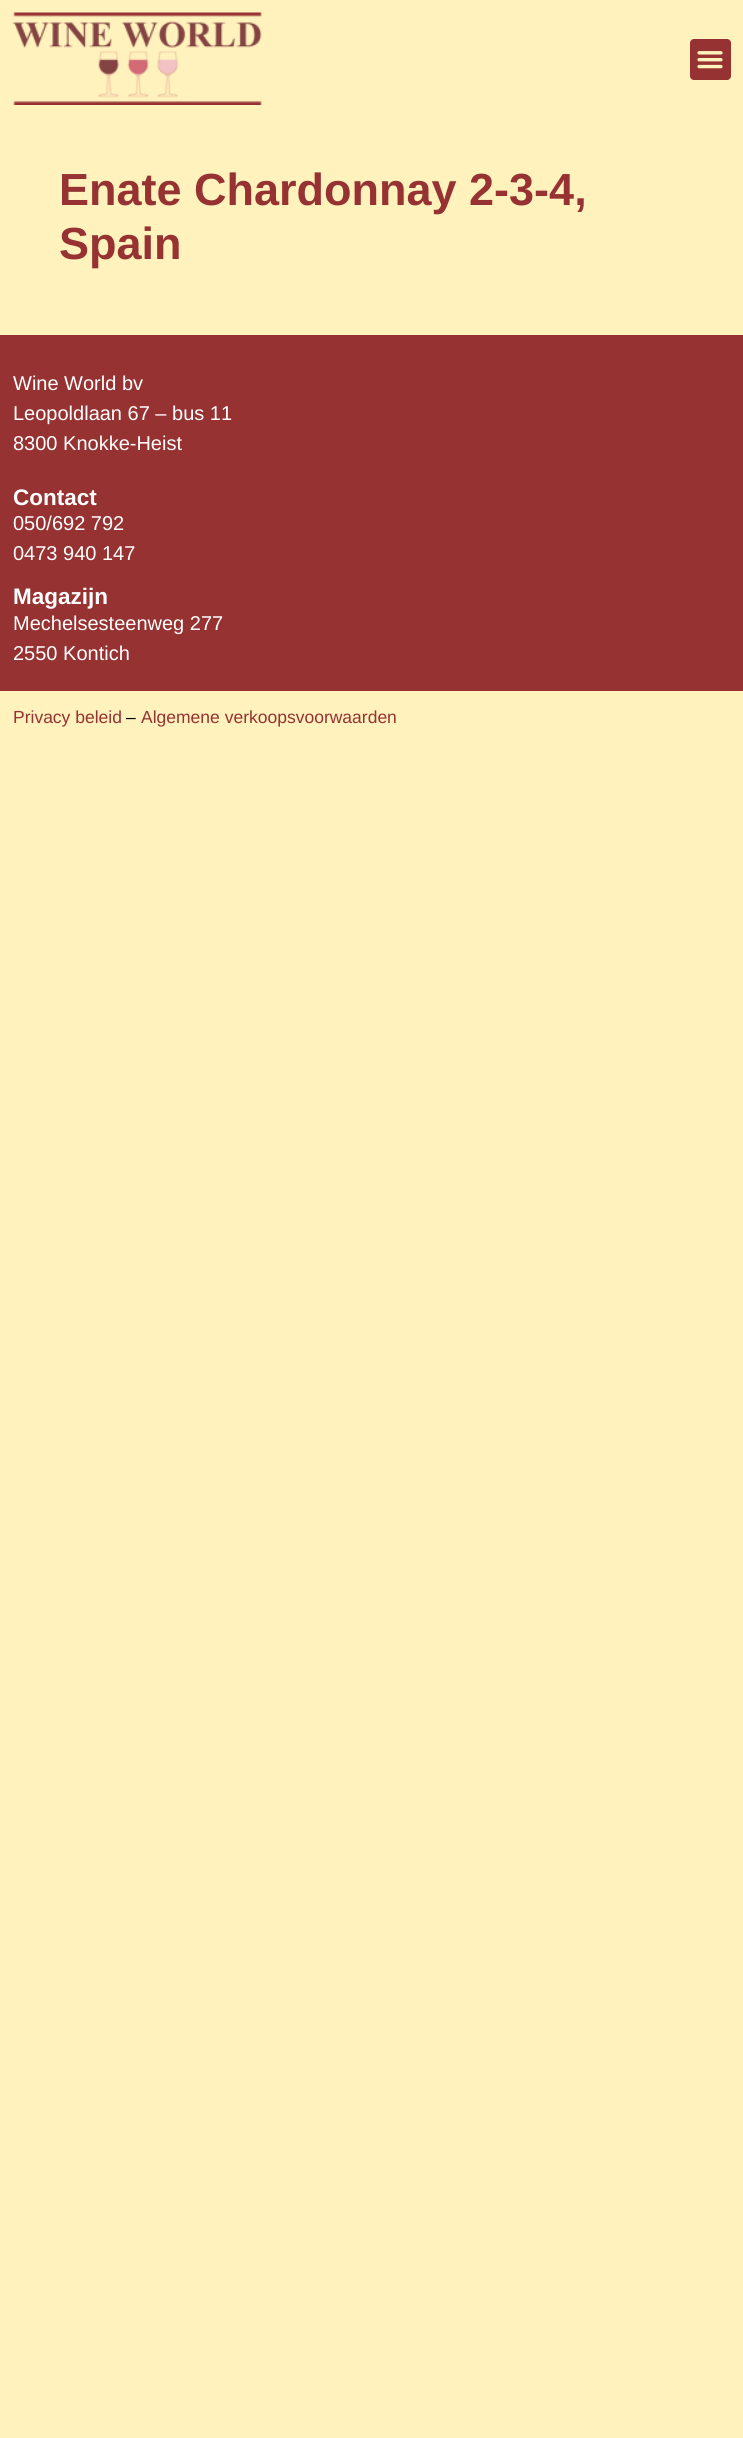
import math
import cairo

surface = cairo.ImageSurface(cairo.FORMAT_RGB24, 743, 2438)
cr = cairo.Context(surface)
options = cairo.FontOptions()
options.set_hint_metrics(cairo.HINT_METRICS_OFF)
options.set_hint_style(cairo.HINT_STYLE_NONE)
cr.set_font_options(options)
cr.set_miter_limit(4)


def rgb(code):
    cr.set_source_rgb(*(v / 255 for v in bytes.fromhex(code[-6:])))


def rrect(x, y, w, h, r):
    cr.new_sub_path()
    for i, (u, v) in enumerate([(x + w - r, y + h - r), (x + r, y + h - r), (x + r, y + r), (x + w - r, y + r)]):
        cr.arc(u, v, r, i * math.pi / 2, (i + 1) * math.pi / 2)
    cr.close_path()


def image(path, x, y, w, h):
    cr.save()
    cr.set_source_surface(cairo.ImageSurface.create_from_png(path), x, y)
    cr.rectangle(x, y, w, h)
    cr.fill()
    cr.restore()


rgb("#fff2bd")
cr.paint()
image("img/1.png", 12, 12, 250, 93)
rgb("#963232")
rrect(690, 39, 41, 41, 4)
cr.fill()
image("img/2.png", 697, 51, 26, 18)
cr.rectangle(0, 335, 743, 356)
cr.fill()
cr.select_font_face("Liberation Sans", cairo.FONT_SLANT_NORMAL, cairo.FONT_WEIGHT_BOLD)
cr.set_font_size(45)
cr.move_to(59, 205)
cr.show_text("Enate Chardonnay 2-3-4,")
cr.move_to(59, 259)
cr.show_text("Spain")
cr.select_font_face("Liberation Sans")
cr.set_font_size(20)
rgb("#ffffff")
for x, y, s in [
    (13, 390, "Wine World bv"),
    (13, 420, "Leopoldlaan 67 – bus 11"),
    (13, 450, "8300 Knokke-Heist"),
]:
    cr.move_to(x, y)
    cr.show_text(s)
cr.select_font_face("Liberation Sans", cairo.FONT_SLANT_NORMAL, cairo.FONT_WEIGHT_BOLD)
cr.set_font_size(22.5)
cr.move_to(13, 505)
cr.show_text("Contact")
cr.select_font_face("Liberation Sans")
cr.set_font_size(20)
cr.move_to(13, 530)
cr.show_text("050/692 792")
cr.move_to(13, 560)
cr.show_text("0473 940 147")
cr.select_font_face("Liberation Sans", cairo.FONT_SLANT_NORMAL, cairo.FONT_WEIGHT_BOLD)
cr.set_font_size(22.5)
cr.move_to(13, 604)
cr.show_text("Magazijn")
cr.select_font_face("Liberation Sans")
cr.set_font_size(20)
cr.move_to(13, 630)
cr.show_text("Mechelsesteenweg 277")
cr.move_to(13, 660)
cr.show_text("2550 Kontich")
cr.set_font_size(17.5)
rgb("#963232")
cr.move_to(13, 723)
cr.show_text("Privacy beleid")
rgb("#000000")
cr.move_to(126, 723)
cr.show_text("–")
rgb("#963232")
cr.move_to(141, 723)
cr.show_text("Algemene verkoopsvoorwaarden")
surface.write_to_png("page.png")
